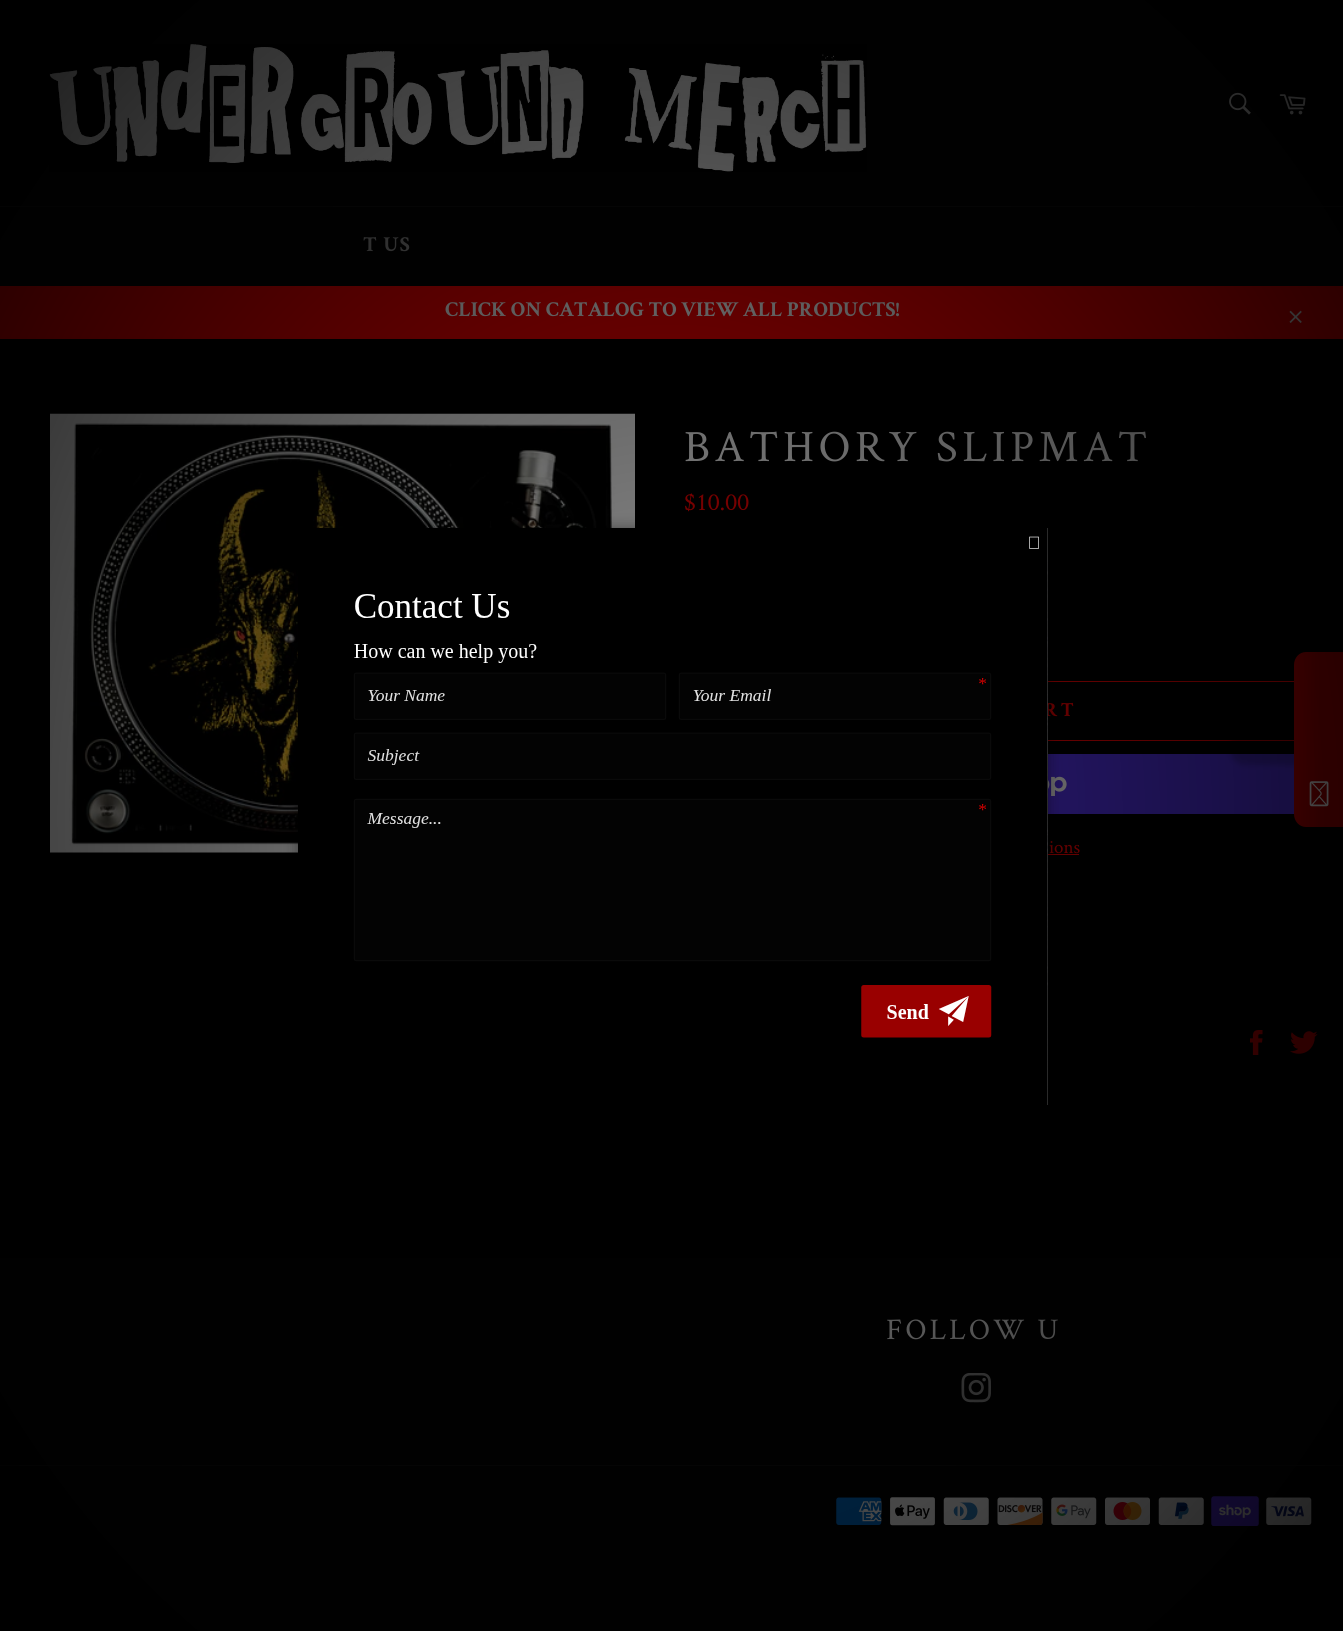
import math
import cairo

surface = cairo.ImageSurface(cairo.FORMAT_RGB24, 1343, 1631)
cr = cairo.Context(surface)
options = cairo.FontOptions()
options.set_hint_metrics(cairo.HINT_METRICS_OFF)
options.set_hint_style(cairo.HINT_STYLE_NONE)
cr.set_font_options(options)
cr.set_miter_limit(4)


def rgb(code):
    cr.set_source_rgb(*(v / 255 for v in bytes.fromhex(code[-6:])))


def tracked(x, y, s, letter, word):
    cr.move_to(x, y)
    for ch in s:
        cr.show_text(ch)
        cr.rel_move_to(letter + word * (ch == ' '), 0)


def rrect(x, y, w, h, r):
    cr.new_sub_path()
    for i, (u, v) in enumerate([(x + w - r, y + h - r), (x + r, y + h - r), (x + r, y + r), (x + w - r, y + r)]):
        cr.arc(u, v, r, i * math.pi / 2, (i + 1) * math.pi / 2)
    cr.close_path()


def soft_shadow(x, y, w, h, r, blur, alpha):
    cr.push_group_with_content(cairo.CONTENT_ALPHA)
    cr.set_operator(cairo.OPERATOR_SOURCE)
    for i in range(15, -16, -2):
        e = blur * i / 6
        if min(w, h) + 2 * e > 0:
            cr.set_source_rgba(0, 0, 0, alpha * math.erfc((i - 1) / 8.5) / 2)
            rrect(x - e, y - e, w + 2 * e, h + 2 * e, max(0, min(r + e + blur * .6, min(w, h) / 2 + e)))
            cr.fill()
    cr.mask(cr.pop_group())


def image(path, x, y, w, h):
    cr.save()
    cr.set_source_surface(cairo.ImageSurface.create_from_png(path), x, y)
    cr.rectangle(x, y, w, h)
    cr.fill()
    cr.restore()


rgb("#030303")
cr.paint()
rgb("#000000")
cr.rectangle(0, 339, 1343, 919)
cr.fill()
cr.rectangle(685.5, 681.5, 620, 59)
rgb("#ff0000")
cr.set_line_width(1)
cr.stroke()
rgb("#5433eb")
cr.rectangle(1048, 754, 246, 60)
cr.fill()
rgb("#000000")
soft_shadow(1231, 715, 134, 50, 13, 3, 0.2)
gradient = cairo.LinearGradient(1294, 740, 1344, 740)
gradient.add_color_stop_rgba(0, 0.8, 0, 0, 1)
gradient.add_color_stop_rgba(0.5, 0.682, 0, 0, 1)
cr.set_source(gradient)
cr.new_path()
cr.move_to(1294, 814)
cr.line_to(1294, 665)
cr.curve_to(1294, 658, 1299, 652, 1306, 652)
cr.line_to(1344, 652)
cr.line_to(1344, 827)
cr.line_to(1306, 827)
cr.curve_to(1299, 827, 1294, 821, 1294, 814)
cr.close_path()
cr.fill()
image("img/3.png", 1309, 781, 20, 26)
image("img/4.png", 49, 44, 818, 128)
image("img/5.png", 1229, 92, 22, 23)
image("img/6.png", 1279, 94, 27, 21)
rgb("#101010")
cr.rectangle(0, 206, 1343, 1)
cr.fill()
rgb("#ff0000")
cr.rectangle(0, 286, 1343, 53)
cr.fill()
image("img/7.png", 1289, 310, 13, 13)
image("img/8.png", 50, 413, 585, 440)
image("img/9.png", 1048, 776, 19, 20)
cr.rectangle(1048, 854, 31, 1)
cr.fill()
image("img/10.png", 1250, 1030, 13, 25)
image("img/11.png", 1290, 1031, 28, 23)
image("img/12.png", 961, 1373, 30, 30)
rgb("#101010")
cr.rectangle(0, 1465, 1343, 1)
cr.fill()
image("img/13.png", 836, 1497, 46, 28)
image("img/14.png", 890, 1497, 45, 29)
image("img/15.png", 943, 1497, 46, 28)
image("img/16.png", 997, 1497, 46, 28)
image("img/17.png", 1051, 1497, 46, 28)
image("img/18.png", 1105, 1497, 45, 28)
image("img/19.png", 1158, 1497, 46, 28)
image("img/20.png", 1211, 1496, 48, 30)
image("img/21.png", 1266, 1497, 46, 28)
cr.select_font_face("Crimson Text", cairo.FONT_SLANT_NORMAL, cairo.FONT_WEIGHT_BOLD)
cr.set_font_size(21.25)
rgb("#9a9a9a")
tracked(363, 251, "T US", 1, 0)
rgb("#ffffff")
cr.move_to(445, 316)
cr.show_text("CLICK ON CATALOG TO VIEW ALL PRODUCTS!")
cr.select_font_face("Crimson Text")
cr.set_font_size(45)
tracked(684, 461, "BATHORY SLIPMAT", 4.5, 0)
cr.set_font_size(25)
rgb("#ff0000")
cr.move_to(684, 510)
cr.show_text("$10.00")
cr.select_font_face("Crimson Text", cairo.FONT_SLANT_NORMAL, cairo.FONT_WEIGHT_BOLD)
cr.set_font_size(20)
tracked(1044, 716, "RT", 3, 0)
cr.select_font_face("Crimson Text")
cr.set_font_size(19)
cr.move_to(1049, 853)
cr.show_text("ions")
cr.set_font_size(30)
rgb("#ffffff")
tracked(886, 1339, "FOLLOW U", 3, 0)
gradient = cairo.RadialGradient(0, 0, 0, 0, 0, 1)
gradient.set_matrix(cairo.Matrix(1 / 950, 0, 0, 1 / 1153, -1 * 672 / 950, -1 * 816 / 1153))
gradient.add_color_stop_rgba(0, 0, 0, 0, 0.4)
gradient.add_color_stop_rgba(1, 0, 0, 0, 0.9)
cr.set_source(gradient)
cr.rectangle(0, 0, 1343, 1631)
cr.fill()
rgb("#000000")
soft_shadow(298, 528, 750, 577, 2.5, 7, 0.4)
image("img/1.png", 298, 528, 750, 577)
image("img/2.png", 1029, 536, 10, 13)
surface.write_to_png("page.png")
